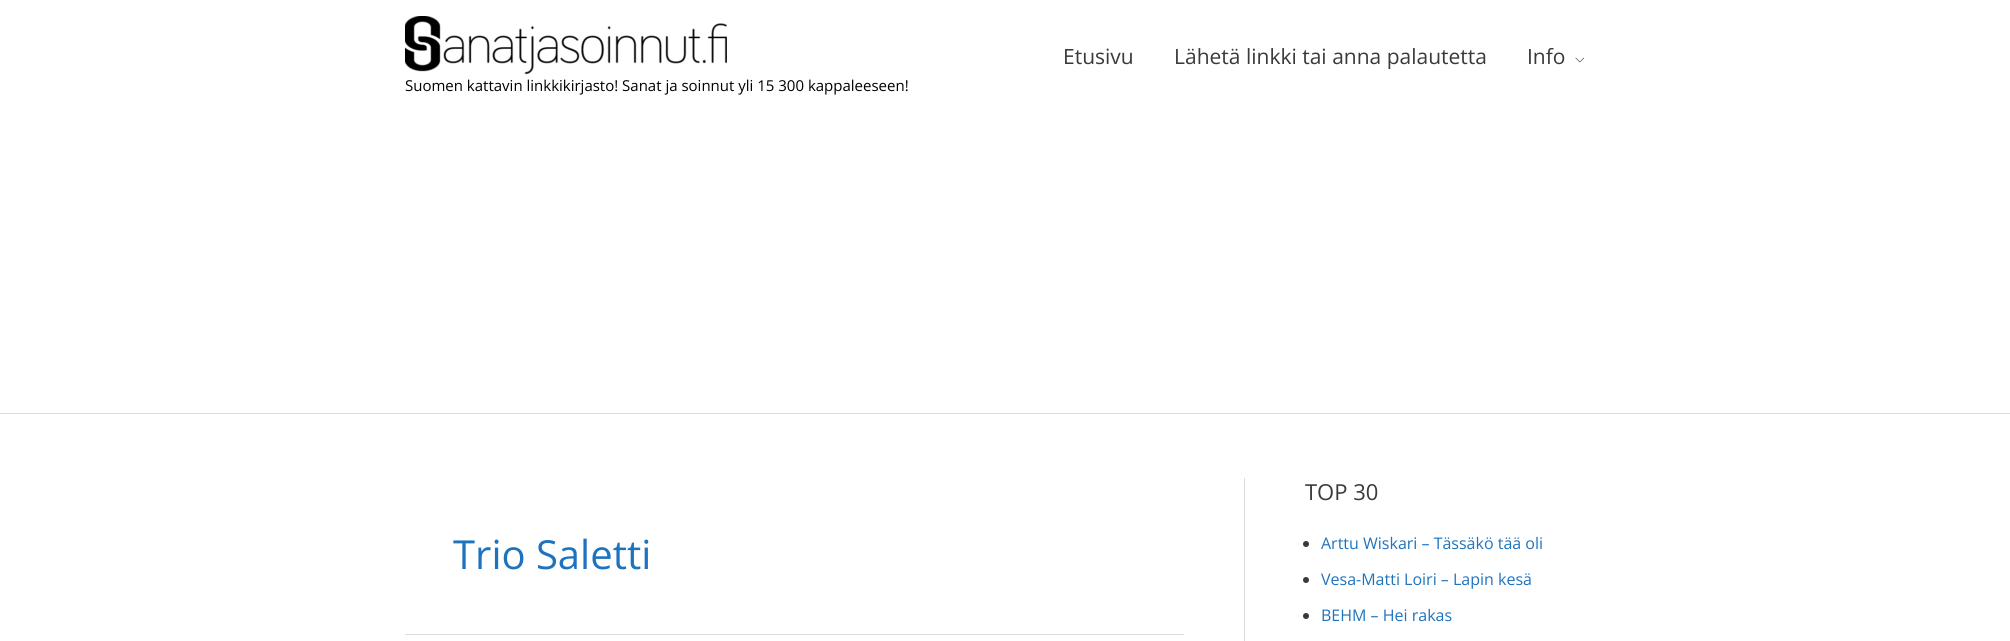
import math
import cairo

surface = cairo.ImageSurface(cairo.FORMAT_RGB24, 2010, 641)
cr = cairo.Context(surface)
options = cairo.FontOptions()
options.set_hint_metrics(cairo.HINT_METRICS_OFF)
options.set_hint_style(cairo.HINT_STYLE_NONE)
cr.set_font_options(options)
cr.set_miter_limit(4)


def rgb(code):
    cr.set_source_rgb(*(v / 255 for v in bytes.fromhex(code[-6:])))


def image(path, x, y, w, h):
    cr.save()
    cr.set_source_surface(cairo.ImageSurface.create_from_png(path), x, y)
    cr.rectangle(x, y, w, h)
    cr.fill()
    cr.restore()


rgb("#ffffff")
cr.paint()
rgb("#dddddd")
cr.rectangle(0, 413, 2010, 1)
cr.fill()
image("img/1.png", 1575, 57, 9, 6)
image("img/2.png", 405, 16, 322, 58)
cr.rectangle(1244, 478, 1, 163)
cr.fill()
cr.rectangle(405, 634, 779, 1)
cr.fill()
rgb("#3a3a3a")
cr.arc(1306, 544, 3, 0, 2 * math.pi)
cr.fill()
cr.arc(1306, 580, 3, 0, 2 * math.pi)
cr.fill()
cr.arc(1306, 616, 3, 0, 2 * math.pi)
cr.fill()
cr.select_font_face("Open Sans")
cr.set_font_size(21)
for x, y, s in [
    (1063, 64, "Etusivu"),
    (1174, 64, "Lähetä linkki tai anna palautetta"),
    (1527, 64, "Info"),
]:
    cr.move_to(x, y)
    cr.show_text(s)
cr.set_font_size(15)
rgb("#000000")
cr.move_to(405, 91)
cr.show_text("Suomen kattavin linkkikirjasto! Sanat ja soinnut yli 15 300 kappaleeseen!")
cr.set_font_size(40)
rgb("#1e73be")
cr.move_to(453, 569)
cr.show_text("Trio Saletti")
cr.set_font_size(22)
rgb("#3a3a3a")
cr.move_to(1305, 500)
cr.show_text("TOP 30")
cr.set_font_size(16)
rgb("#1e73be")
for x, y, s in [
    (1321, 549, "Arttu Wiskari – Tässäkö tää oli"),
    (1321, 585, "Vesa-Matti Loiri – Lapin kesä"),
    (1321, 621, "BEHM – Hei rakas"),
]:
    cr.move_to(x, y)
    cr.show_text(s)
surface.write_to_png("page.png")
